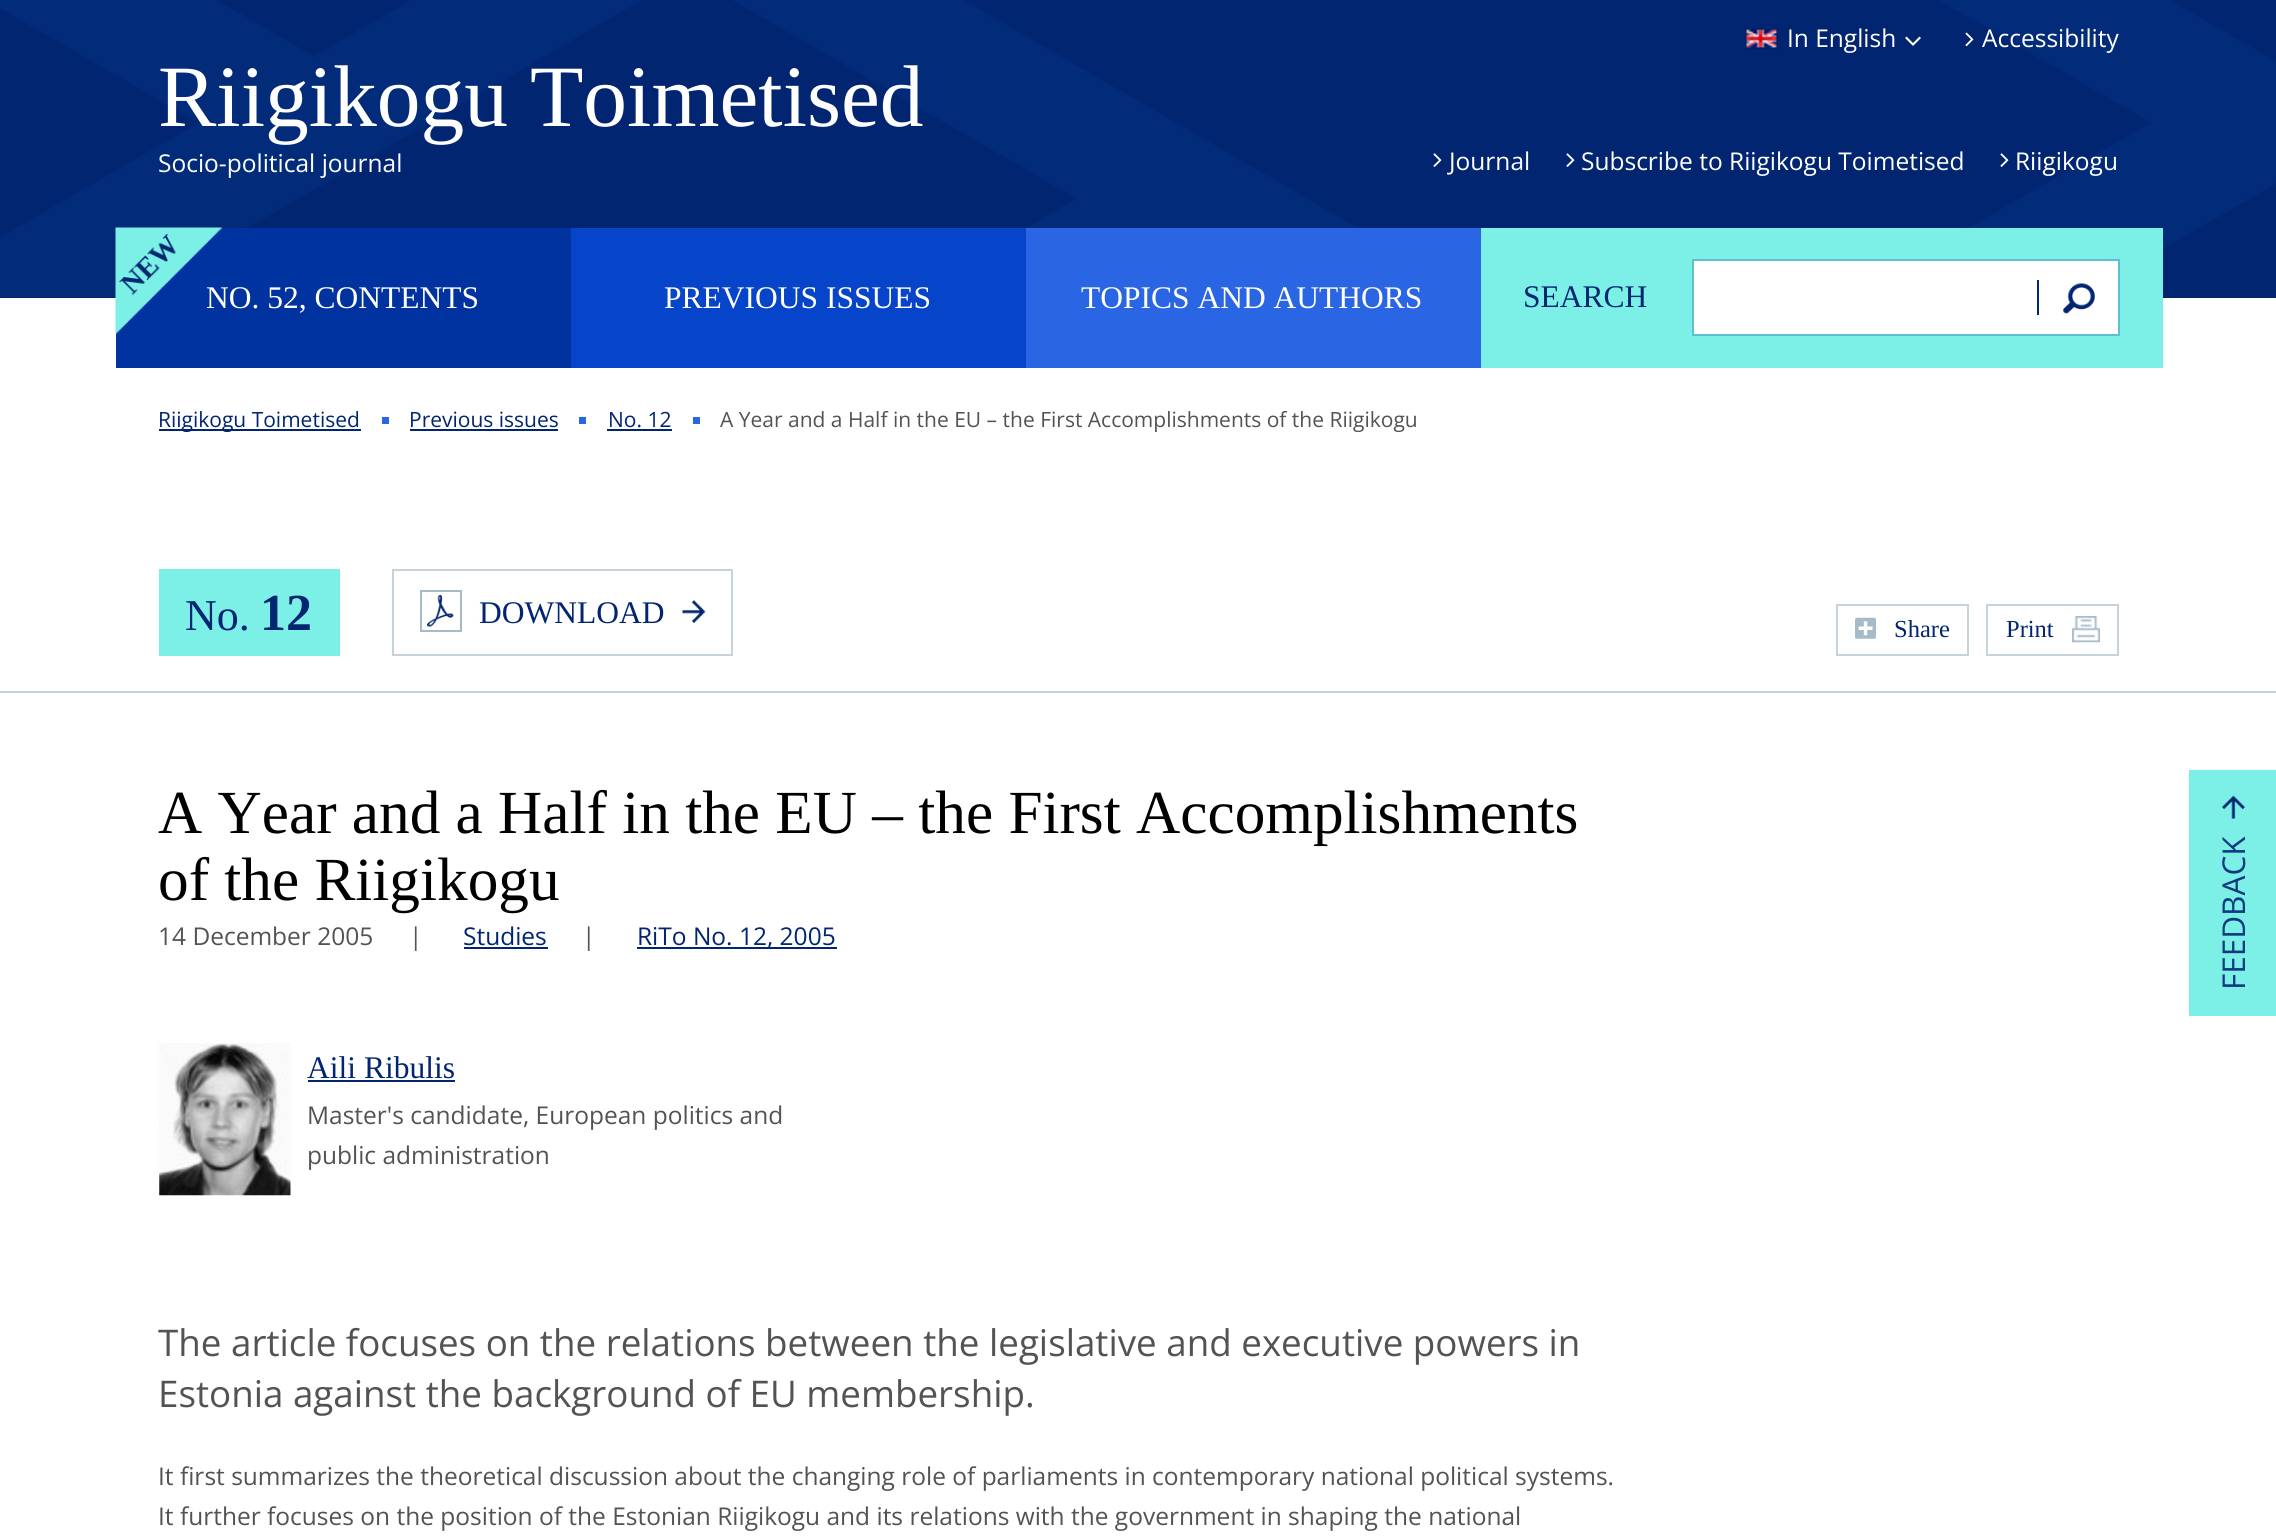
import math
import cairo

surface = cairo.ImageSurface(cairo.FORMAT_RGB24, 2276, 1540)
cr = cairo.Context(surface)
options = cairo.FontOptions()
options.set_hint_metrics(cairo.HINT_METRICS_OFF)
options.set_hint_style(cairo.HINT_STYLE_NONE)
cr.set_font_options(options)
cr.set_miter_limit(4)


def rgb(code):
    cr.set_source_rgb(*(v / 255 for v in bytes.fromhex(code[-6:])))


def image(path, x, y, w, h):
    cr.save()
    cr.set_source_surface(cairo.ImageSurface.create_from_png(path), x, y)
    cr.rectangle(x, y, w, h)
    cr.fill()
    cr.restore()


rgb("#ffffff")
cr.paint()
rgb("#022571")
cr.rectangle(0, 0, 2276, 298)
cr.fill()
image("img/1.png", 0, 0, 2276, 298)
image("img/2.png", 1745, 28, 33, 21)
image("img/3.png", 1905, 36, 16, 10)
image("img/4.png", 1965, 32, 9, 15)
image("img/5.png", 1433, 153, 9, 14)
image("img/5.png", 1566, 153, 9, 14)
image("img/5.png", 2000, 153, 9, 14)
rgb("#2a65e4")
cr.rectangle(1026, 228, 455, 140)
cr.fill()
rgb("#0033a0")
cr.rectangle(116, 228, 455, 140)
cr.fill()
image("img/6.png", 115, 227, 108, 108)
for x, y, w, h, color in [
    (571, 228, 455, 140, "#0644c9"),
    (1481, 228, 682, 140, "#7cf0e6"),
    (1694, 261, 424, 73, "#ffffff"),
    (1692, 259, 427, 2, "#5cbfd4"),
    (1692, 334, 350, 2, "#5cbfd4"),
    (1692, 259, 2, 77, "#5cbfd4"),
]:
    rgb(color)
    cr.rectangle(x, y, w, h)
    cr.fill()
image("img/7.png", 2063, 283, 32, 31)
for x, y, w, h, color in [
    (2118, 259, 2, 77, "#5cbfd4"),
    (2042, 334, 77, 2, "#5cbfd4"),
    (2037, 280, 2, 35, "#022571"),
    (0, 691, 2276, 2, "#c7d3da"),
    (159, 429, 202, 2, "#022571"),
    (382, 417, 7, 7, "#2a65e4"),
    (410, 429, 148, 2, "#022571"),
    (579, 417, 7, 7, "#2a65e4"),
    (607, 429, 65, 2, "#022571"),
    (693, 417, 7, 7, "#2a65e4"),
    (159, 569, 181, 87, "#7cf0e6"),
]:
    rgb(color)
    cr.rectangle(x, y, w, h)
    cr.fill()
cr.rectangle(393, 570, 339, 85)
rgb("#c7d3da")
cr.stroke()
image("img/8.png", 427, 595, 27, 32)
cr.rectangle(421, 591, 40, 40)
rgb("#a6bbc8")
cr.stroke()
image("img/9.png", 682, 600, 24, 23)
cr.rectangle(1837, 605, 131, 50)
rgb("#c7d3da")
cr.stroke()
image("img/10.png", 1855, 617, 21, 22)
cr.rectangle(1987, 605, 131, 50)
cr.stroke()
image("img/11.png", 2072, 616, 28, 27)
rgb("#022571")
cr.rectangle(464, 947, 84, 2)
cr.fill()
cr.rectangle(637, 947, 200, 2)
cr.fill()
image("img/12.png", 159, 1043, 132, 153)
cr.rectangle(308, 1080, 147, 2)
cr.fill()
rgb("#7cf0e6")
cr.rectangle(2189, 770, 87, 246)
cr.fill()
image("img/13.png", 2222, 795, 23, 24)
cr.select_font_face("Open Sans")
cr.set_font_size(24.5)
rgb("#ffffff")
cr.move_to(1787, 47)
cr.show_text("In English")
cr.move_to(1982, 47)
cr.show_text("Accessibility")
cr.select_font_face("Tinos")
cr.set_font_size(87.5)
cr.move_to(158, 126)
cr.show_text("Riigikogu Toimetised")
cr.select_font_face("Open Sans")
cr.set_font_size(24.5)
for x, y, s in [
    (158, 172, "Socio-political journal"),
    (1449, 170, "Journal"),
    (1581, 170, "Subscribe to Riigikogu Toimetised"),
    (2015, 170, "Riigikogu"),
]:
    cr.move_to(x, y)
    cr.show_text(s)
cr.select_font_face("Tinos")
cr.set_font_size(31.5)
for x, y, s in [
    (206, 308, "NO. 52, CONTENTS"),
    (664, 308, "PREVIOUS ISSUES"),
    (1081, 308, "TOPICS AND AUTHORS"),
]:
    cr.move_to(x, y)
    cr.show_text(s)
rgb("#022571")
cr.move_to(1523, 307)
cr.show_text("SEARCH")
cr.select_font_face("Open Sans")
cr.set_font_size(21)
for x, y, s in [
    (158, 427, "Riigikogu Toimetised"),
    (409, 427, "Previous issues"),
    (608, 427, "No. 12"),
]:
    cr.move_to(x, y)
    cr.show_text(s)
rgb("#535353")
cr.move_to(720, 427)
cr.show_text("A Year and a Half in the EU – the First Accomplishments of the Riigikogu")
cr.select_font_face("Tinos")
cr.set_font_size(44)
rgb("#022571")
cr.move_to(185, 630)
cr.show_text("No.")
cr.select_font_face("Tinos", cairo.FONT_SLANT_NORMAL, cairo.FONT_WEIGHT_BOLD)
cr.set_font_size(52)
cr.move_to(260, 630)
cr.show_text("12")
cr.select_font_face("Tinos")
cr.set_font_size(31.5)
cr.move_to(479, 623)
cr.show_text("DOWNLOAD")
cr.set_font_size(24.5)
cr.move_to(1894, 637)
cr.show_text("Share")
cr.move_to(2006, 637)
cr.show_text("Print")
cr.set_font_size(61.25)
rgb("#000000")
cr.move_to(158, 833)
cr.show_text("A Year and a Half in the EU – the First Accomplishments")
cr.move_to(158, 900)
cr.show_text("of the Riigikogu")
cr.select_font_face("Open Sans")
cr.set_font_size(24.5)
rgb("#535353")
cr.move_to(158, 945)
cr.show_text("14 December 2005")
cr.move_to(409, 945)
cr.show_text("|")
rgb("#022571")
cr.move_to(463, 945)
cr.show_text("Studies")
rgb("#535353")
cr.move_to(582, 945)
cr.show_text("|")
rgb("#022571")
cr.move_to(637, 945)
cr.show_text("RiTo No. 12, 2005")
cr.select_font_face("Tinos")
cr.set_font_size(31.5)
cr.move_to(307, 1078)
cr.show_text("Aili Ribulis")
cr.select_font_face("Open Sans")
cr.set_font_size(24.5)
rgb("#535353")
cr.move_to(307, 1124)
cr.show_text("Master's candidate, European politics and")
cr.move_to(307, 1164)
cr.show_text("public administration")
cr.set_font_size(36.75)
cr.move_to(158, 1356)
cr.show_text("The article focuses on the relations between the legislative and executive powers in")
cr.move_to(158, 1407)
cr.show_text("Estonia against the background of EU membership.")
cr.set_font_size(24.5)
cr.move_to(158, 1485)
cr.show_text("It first summarizes the theoretical discussion about the changing role of parliaments in contemporary national political systems.")
cr.move_to(158, 1525)
cr.show_text("It further focuses on the position of the Estonian Riigikogu and its relations with the government in shaping the national")
cr.set_font_size(31.5)
rgb("#0f3b7e")
cr.save()
cr.translate(2245, 990)
cr.rotate(-90 * math.pi / 180)
cr.move_to(0, 0)
cr.show_text("FEEDBACK")
cr.restore()
surface.write_to_png("page.png")
